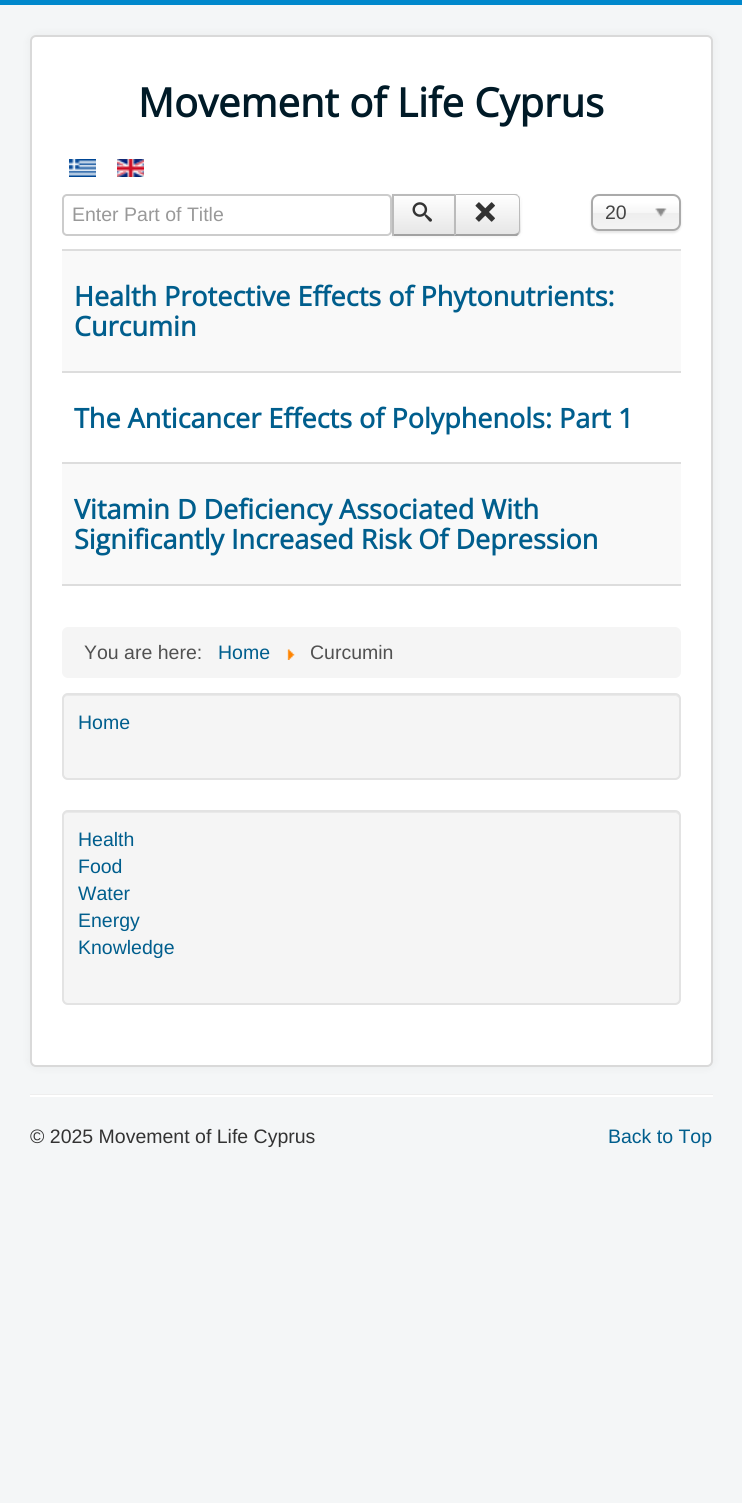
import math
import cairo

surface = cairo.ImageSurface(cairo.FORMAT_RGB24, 742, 1503)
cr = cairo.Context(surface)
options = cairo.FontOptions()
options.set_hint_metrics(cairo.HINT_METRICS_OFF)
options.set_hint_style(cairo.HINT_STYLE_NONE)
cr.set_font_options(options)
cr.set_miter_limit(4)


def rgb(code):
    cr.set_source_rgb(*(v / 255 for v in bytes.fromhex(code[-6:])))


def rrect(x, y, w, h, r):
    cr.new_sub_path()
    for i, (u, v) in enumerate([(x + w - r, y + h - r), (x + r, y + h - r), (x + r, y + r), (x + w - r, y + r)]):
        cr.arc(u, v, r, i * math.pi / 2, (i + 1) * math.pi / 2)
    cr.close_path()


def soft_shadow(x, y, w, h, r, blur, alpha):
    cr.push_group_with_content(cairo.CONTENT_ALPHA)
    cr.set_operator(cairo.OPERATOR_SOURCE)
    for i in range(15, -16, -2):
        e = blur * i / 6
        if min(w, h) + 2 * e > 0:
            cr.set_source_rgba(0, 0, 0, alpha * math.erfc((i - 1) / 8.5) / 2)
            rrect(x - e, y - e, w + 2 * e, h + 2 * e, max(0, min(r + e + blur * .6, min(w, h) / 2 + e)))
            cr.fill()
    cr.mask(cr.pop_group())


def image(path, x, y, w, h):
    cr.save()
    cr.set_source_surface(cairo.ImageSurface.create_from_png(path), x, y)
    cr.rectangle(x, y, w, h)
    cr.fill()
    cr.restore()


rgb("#f4f6f7")
cr.paint()
rgb("#0088cc")
cr.rectangle(0, 0, 742, 5)
cr.fill()
rgb("#000000")
soft_shadow(30, 35, 683, 1032, 6, 4.5, 0.05)
rgb("#ffffff")
rrect(30, 35, 683, 1032, 6)
cr.fill()
rrect(31, 36, 681, 1030, 5)
cr.set_source_rgba(0, 0, 0, 0.15)
cr.stroke()
image("img/1.png", 69, 159, 27, 18)
image("img/2.png", 117, 159, 27, 18)
rgb("#ececec")
cr.new_path()
cr.move_to(66, 196)
cr.line_to(387, 196)
cr.curve_to(389, 196, 390, 198, 390, 200)
cr.line_to(390, 198)
cr.curve_to(390, 196, 389, 195, 387, 195)
cr.line_to(66, 195)
cr.curve_to(64, 195, 63, 196, 63, 198)
cr.line_to(63, 200)
cr.curve_to(63, 198, 64, 196, 66, 196)
cr.close_path()
cr.fill()
rrect(63, 195, 328, 40, 4)
rgb("#cccccc")
cr.stroke()
rgb("#000000")
soft_shadow(392, 195, 64, 42, 0, 1.5, 0.05)
gradient = cairo.LinearGradient(424, 195, 424, 234)
gradient.add_color_stop_rgba(0, 1, 1, 1, 1)
gradient.add_color_stop_rgba(1, 0.902, 0.902, 0.902, 1)
cr.set_source(gradient)
cr.rectangle(394, 196, 60, 38)
cr.fill()
for x, y, w, h, color in [
    (392, 194, 64, 2, "#bbbbbb"),
    (392, 234, 64, 2, "#a2a2a2"),
    (392, 194, 2, 42, "#bbbbbb"),
]:
    rgb(color)
    cr.rectangle(x, y, w, h)
    cr.fill()
image("img/3.png", 412, 202, 20, 20)
rgb("#000000")
soft_shadow(455, 195, 66, 42, 6, 1.5, 0.05)
rgb("#f5f5f5")
cr.new_path()
cr.move_to(455, 194)
cr.line_to(515, 194)
cr.curve_to(518.5, 194, 521, 196.5, 521, 200)
cr.line_to(521, 230)
cr.curve_to(521, 233.5, 518.5, 236, 515, 236)
cr.line_to(455, 236)
cr.close_path()
cr.fill()
cr.save()
cr.new_path()
cr.move_to(455, 194)
cr.line_to(515, 194)
cr.curve_to(518.5, 194, 521, 196.5, 521, 200)
cr.line_to(521, 230)
cr.curve_to(521, 233.5, 518.5, 236, 515, 236)
cr.line_to(455, 236)
cr.close_path()
cr.clip()
gradient = cairo.LinearGradient(488, 195, 488, 234)
gradient.add_color_stop_rgba(0, 1, 1, 1, 1)
gradient.add_color_stop_rgba(1, 0.902, 0.902, 0.902, 1)
cr.set_source(gradient)
cr.rectangle(456, 195, 65, 39)
cr.fill()
cr.restore()
rgb("#bbbbbb")
cr.new_path()
cr.move_to(456, 195)
cr.line_to(514, 195)
cr.curve_to(516, 195, 517, 196, 518, 196)
cr.curve_to(518, 194, 516, 194, 514, 194)
cr.line_to(455, 194)
cr.close_path()
cr.fill()
cr.new_path()
cr.move_to(518.5, 195.5)
cr.curve_to(519.5, 196.5, 520, 198, 520, 200)
cr.line_to(520, 230)
cr.curve_to(520, 231.5, 519.5, 232.5, 519, 234)
cr.line_to(517.5, 232.5)
cr.curve_to(518.5, 232, 519, 231, 519, 230)
cr.line_to(519, 200)
cr.curve_to(519, 198.5, 518.5, 197, 517.5, 196.5)
cr.close_path()
cr.fill()
rgb("#a2a2a2")
cr.new_path()
cr.move_to(519, 234)
cr.line_to(517, 236)
cr.line_to(454, 236)
cr.line_to(456, 234)
cr.line_to(514, 234)
cr.curve_to(516, 234, 517, 233, 518, 233)
cr.close_path()
cr.fill()
rgb("#bbbbbb")
cr.new_path()
cr.move_to(456, 195)
cr.line_to(454, 194)
cr.line_to(454, 236)
cr.line_to(456, 234)
cr.close_path()
cr.fill()
image("img/4.png", 475, 202, 20, 20)
rgb("#000000")
soft_shadow(591, 195, 90, 38, 8, 1, 0.1)
gradient = cairo.LinearGradient(636, 195, 636, 230)
gradient.add_color_stop_rgba(0.2, 1, 1, 1, 1)
gradient.add_color_stop_rgba(0.5, 0.965, 0.965, 0.965, 1)
gradient.add_color_stop_rgba(0.52, 0.933, 0.933, 0.933, 1)
gradient.add_color_stop_rgba(1, 0.957, 0.957, 0.957, 1)
cr.set_source(gradient)
rrect(593, 195, 87, 35, 6)
cr.fill()
rrect(592, 195, 88, 35, 7)
rgb("#aaaaaa")
cr.stroke()
image("img/5.png", 655, 208, 12, 9)
for x, y, w, h, color in [
    (62, 249, 619, 2, "#dddddd"),
    (62, 251, 619, 120, "#f9f9f9"),
    (62, 371, 619, 2, "#dddddd"),
    (62, 462, 619, 2, "#dddddd"),
    (62, 464, 619, 120, "#f9f9f9"),
    (62, 584, 619, 2, "#dddddd"),
]:
    rgb(color)
    cr.rectangle(x, y, w, h)
    cr.fill()
rgb("#f5f5f5")
rrect(62, 627, 619, 51, 6)
cr.fill()
image("img/6.png", 287, 649, 8, 11)
rrect(62, 693, 619, 87, 6)
cr.fill()
rgb("#e9e9e9")
cr.new_path()
cr.move_to(68, 696)
cr.line_to(675, 696)
cr.curve_to(677, 696, 680, 698, 680, 700)
cr.curve_to(680, 697, 678, 695, 675, 695)
cr.line_to(68, 695)
cr.curve_to(65, 695, 63, 697, 63, 700)
cr.curve_to(63, 698, 65, 696, 68, 696)
cr.close_path()
cr.fill()
rrect(63, 694, 617, 85, 5)
rgb("#e3e3e3")
cr.stroke()
rgb("#f5f5f5")
rrect(62, 810, 619, 195, 6)
cr.fill()
rgb("#e9e9e9")
cr.new_path()
cr.move_to(68, 813)
cr.line_to(675, 813)
cr.curve_to(677, 813, 680, 815, 680, 818)
cr.line_to(680, 817)
cr.curve_to(680, 814, 678, 812, 675, 812)
cr.line_to(68, 812)
cr.curve_to(65, 812, 63, 814, 63, 817)
cr.line_to(63, 818)
cr.curve_to(63, 815, 65, 813, 68, 813)
cr.close_path()
cr.fill()
rrect(63, 811, 617, 193, 5)
rgb("#e3e3e3")
cr.stroke()
rgb("#eeeeee")
cr.rectangle(30, 1094, 683, 1)
cr.fill()
rgb("#ffffff")
cr.rectangle(30, 1095, 683, 2)
cr.fill()
cr.select_font_face("Open Sans", cairo.FONT_SLANT_NORMAL, cairo.FONT_WEIGHT_BOLD)
cr.set_font_size(40)
rgb("#001a27")
cr.move_to(138, 117)
cr.show_text("Movement of Life Cyprus")
cr.select_font_face("Liberation Sans")
cr.set_font_size(19.5)
rgb("#999999")
cr.move_to(72, 221)
cr.show_text("Enter Part of Title")
rgb("#444444")
cr.move_to(605, 219)
cr.show_text("20")
cr.select_font_face("Open Sans", cairo.FONT_SLANT_NORMAL, cairo.FONT_WEIGHT_BOLD)
cr.set_font_size(27)
rgb("#005e8d")
for x, y, s in [
    (74, 306, "Health Protective Effects of Phytonutrients:"),
    (74, 336, "Curcumin"),
    (74, 428, "The Anticancer Effects of Polyphenols: Part 1"),
    (74, 519, "Vitamin D Deficiency Associated With"),
    (74, 549, "Significantly Increased Risk Of Depression"),
]:
    cr.move_to(x, y)
    cr.show_text(s)
cr.select_font_face("Liberation Sans")
cr.set_font_size(19.5)
rgb("#515151")
cr.move_to(84, 659)
cr.show_text("You are here:")
rgb("#005e8d")
cr.move_to(218, 659)
cr.show_text("Home")
rgb("#515151")
cr.move_to(310, 659)
cr.show_text("Curcumin")
rgb("#005e8d")
for x, y, s in [
    (78, 729, "Home"),
    (78, 846, "Health"),
    (78, 873, "Food"),
    (78, 900, "Water"),
    (78, 927, "Energy"),
    (78, 954, "Knowledge"),
]:
    cr.move_to(x, y)
    cr.show_text(s)
rgb("#333333")
cr.move_to(30, 1143)
cr.show_text("© 2025 Movement of Life Cyprus")
rgb("#005e8d")
cr.move_to(608, 1143)
cr.show_text("Back to Top")
surface.write_to_png("page.png")
